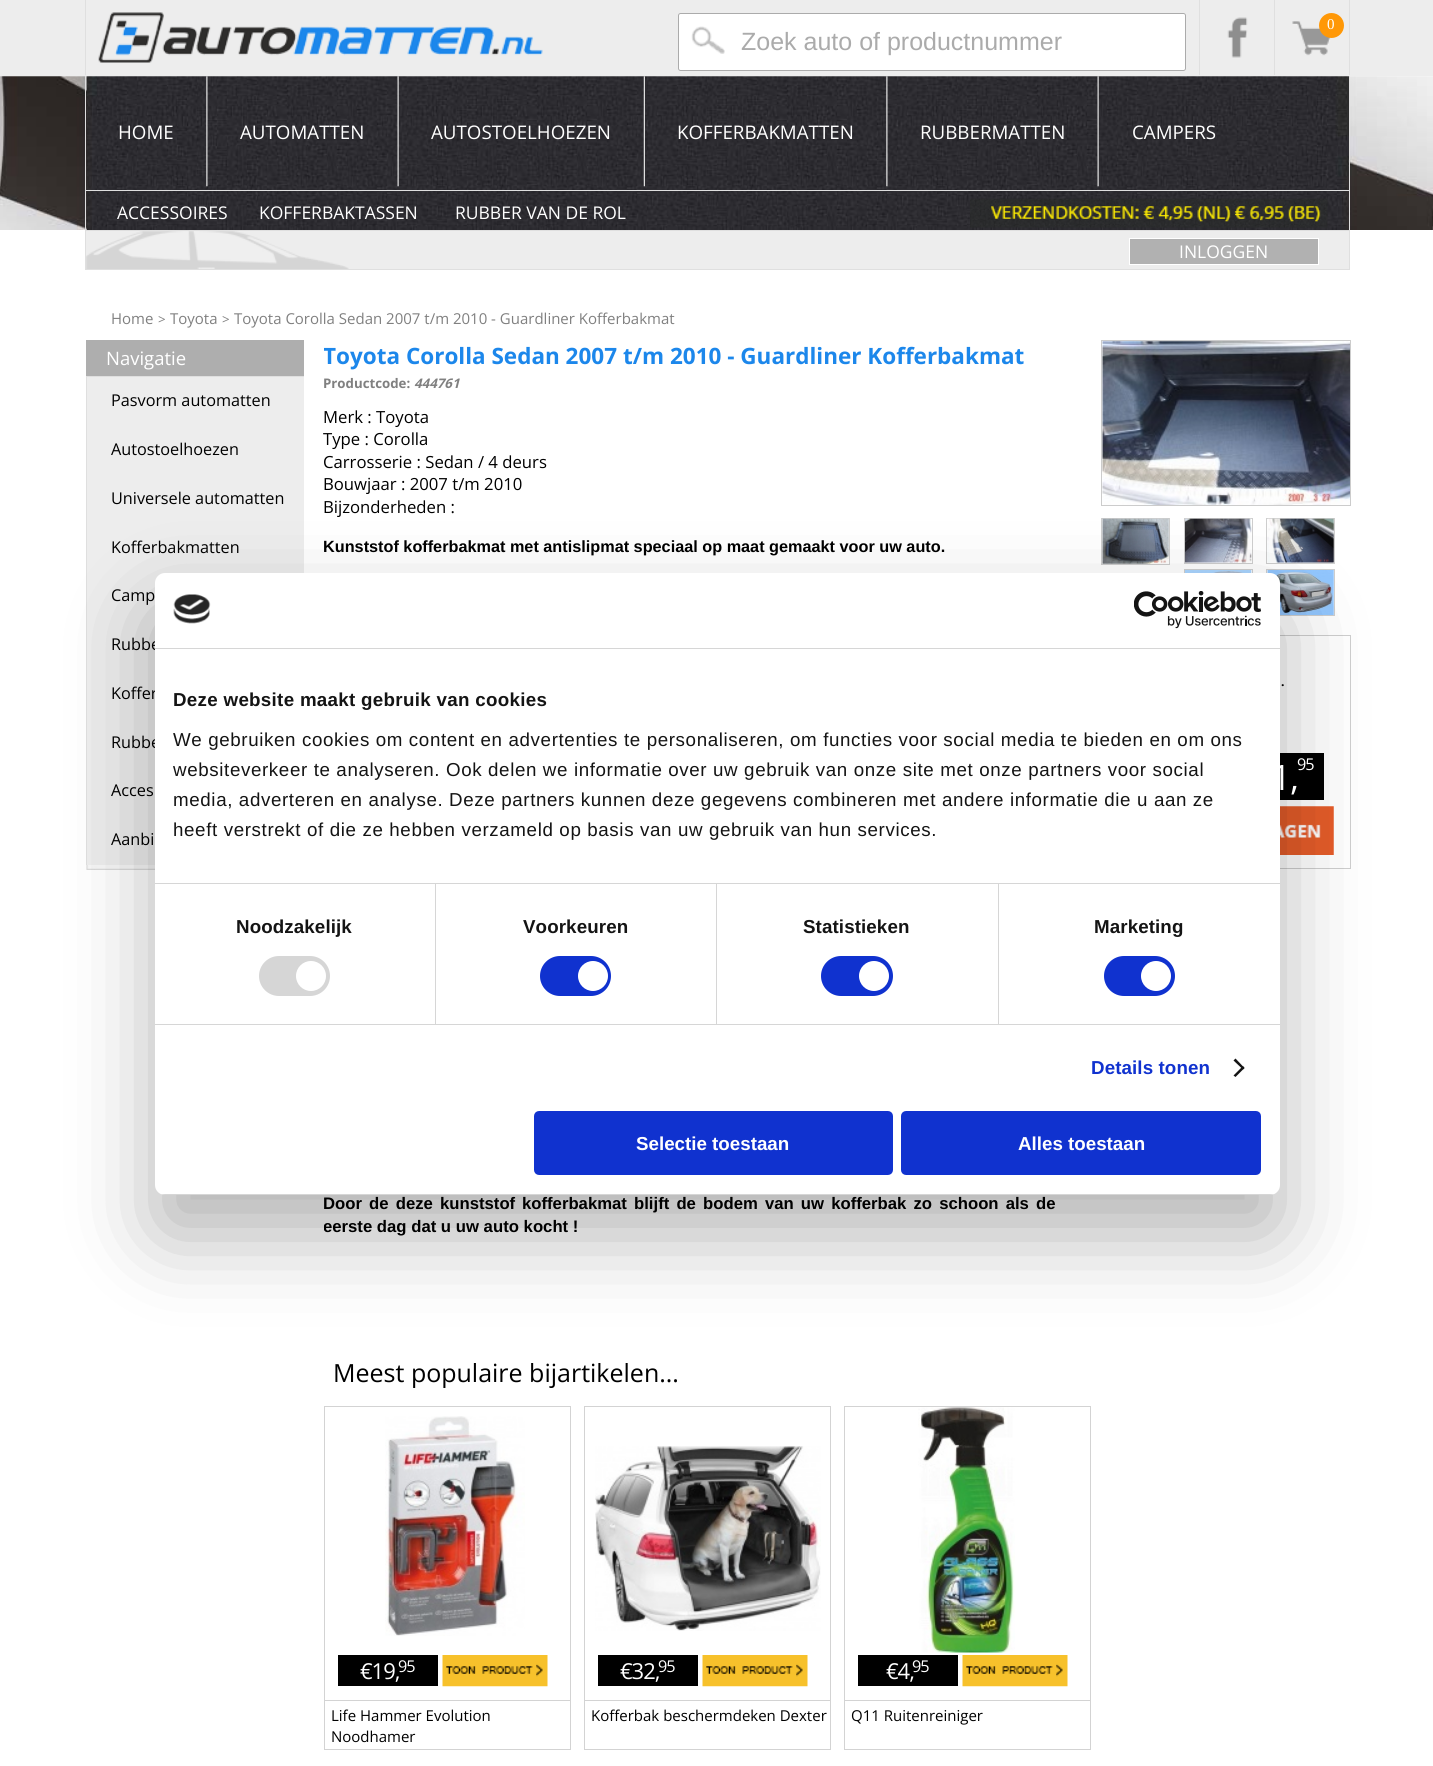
import math
import cairo

surface = cairo.ImageSurface(cairo.FORMAT_RGB24, 1433, 1766)
cr = cairo.Context(surface)
options = cairo.FontOptions()
options.set_hint_metrics(cairo.HINT_METRICS_OFF)
options.set_hint_style(cairo.HINT_STYLE_NONE)
cr.set_font_options(options)
cr.set_miter_limit(4)


def rgb(code):
    cr.set_source_rgb(*(v / 255 for v in bytes.fromhex(code[-6:])))


def tracked(x, y, s, letter, word):
    cr.move_to(x, y)
    for ch in s:
        cr.show_text(ch)
        cr.rel_move_to(letter + word * (ch == ' '), 0)


def rrect(x, y, w, h, r):
    cr.new_sub_path()
    for i, (u, v) in enumerate([(x + w - r, y + h - r), (x + r, y + h - r), (x + r, y + r), (x + w - r, y + r)]):
        cr.arc(u, v, r, i * math.pi / 2, (i + 1) * math.pi / 2)
    cr.close_path()


def soft_shadow(x, y, w, h, r, blur, alpha):
    cr.push_group_with_content(cairo.CONTENT_ALPHA)
    cr.set_operator(cairo.OPERATOR_SOURCE)
    for i in range(15, -16, -2):
        e = blur * i / 6
        if min(w, h) + 2 * e > 0:
            cr.set_source_rgba(0, 0, 0, alpha * math.erfc((i - 1) / 8.5) / 2)
            rrect(x - e, y - e, w + 2 * e, h + 2 * e, max(0, min(r + e + blur * .6, min(w, h) / 2 + e)))
            cr.fill()
    cr.mask(cr.pop_group())


def image(path, x, y, w, h):
    cr.save()
    cr.set_source_surface(cairo.ImageSurface.create_from_png(path), x, y)
    cr.rectangle(x, y, w, h)
    cr.fill()
    cr.restore()


rgb("#ffffff")
cr.paint()
for x, y, w, h, color in [
    (0, 0, 1433, 76, "#ededed"),
    (1349, 0, 1, 75, "#dfdfdf"),
    (85, 0, 1, 75, "#dfdfdf"),
]:
    rgb(color)
    cr.rectangle(x, y, w, h)
    cr.fill()
image("img/1.png", 98, 12, 445, 51)
cr.rectangle(1199, 0, 1, 75)
cr.fill()
image("img/2.png", 1227, 17, 21, 41)
cr.rectangle(1274, 0, 1, 75)
cr.fill()
image("img/3.png", 1292, 21, 40, 35)
rgb("#ff9807")
cr.arc(1331.5, 25.5, 12.5, 0, 2 * math.pi)
cr.fill()
rgb("#ffffff")
rrect(678, 13, 508, 58, 2.5)
cr.fill()
image("img/4.png", 691, 26, 34, 28)
rrect(678.5, 13.5, 507, 57, 2)
rgb("#ababab")
cr.set_line_width(1)
cr.stroke()
image("img/5.png", 0, 76, 1433, 154)
image("img/6.png", 206, 76, 2, 111)
image("img/7.png", 397, 76, 2, 111)
image("img/8.png", 643, 76, 2, 111)
image("img/9.png", 886, 76, 2, 111)
image("img/10.png", 1097, 76, 2, 111)
for x, y, w, h, color in [
    (85, 190, 1265, 1, "#dfdfdf"),
    (1349, 76, 1, 154, "#dfdfdf"),
    (85, 76, 1, 154, "#dfdfdf"),
]:
    rgb(color)
    cr.rectangle(x, y, w, h)
    cr.fill()
image("img/11.png", 970, 198, 358, 30)
rgb("#ededed")
cr.rectangle(86, 231, 1263, 38)
cr.fill()
image("img/12.png", 86, 231, 263, 38)
cr.rectangle(85.5, 230.5, 1264, 39)
rgb("#dfdfdf")
cr.stroke()
rgb("#b1b1b1")
cr.rectangle(1129.5, 238.5, 189, 26)
cr.fill_preserve()
rgb("#ffffff")
cr.stroke()
for x, y, w, h, color in [
    (86, 340, 218, 36, "#aeaeae"),
    (87, 377, 217, 488, "#ededed"),
    (86, 376, 218, 1, "#dfdfdf"),
    (86, 376, 1, 489, "#dfdfdf"),
]:
    rgb(color)
    cr.rectangle(x, y, w, h)
    cr.fill()
image("img/13.png", 86, 865, 69, 5)
cr.rectangle(1101.5, 340.5, 249, 165)
rgb("#cccccc")
cr.stroke()
image("img/14.png", 1102, 341, 248, 164)
cr.rectangle(1101.5, 518.5, 68, 46)
rgb("#cecece")
cr.stroke()
image("img/15.png", 1102, 518, 67, 46)
cr.rectangle(1184.5, 518.5, 68, 45)
cr.stroke()
image("img/16.png", 1185, 518, 67, 45)
cr.rectangle(1266.5, 518.5, 68, 45)
cr.stroke()
image("img/17.png", 1267, 518, 67, 45)
cr.rectangle(1184.5, 569.5, 68, 46)
cr.stroke()
image("img/18.png", 1185, 570, 67, 3)
cr.rectangle(1266.5, 569.5, 68, 46)
cr.stroke()
image("img/19.png", 1267, 570, 67, 45)
cr.rectangle(1101.5, 635.5, 249, 233)
cr.stroke()
rgb("#000000")
cr.rectangle(1280, 753, 44, 47)
cr.fill()
image("img/20.png", 1280, 806, 54, 49)
image("img/21.png", 385, 1416, 140, 220)
cr.rectangle(324.5, 1406.5, 246, 343)
rgb("#d3d3d3")
cr.stroke()
rgb("#000000")
cr.rectangle(338, 1655, 100, 31)
cr.fill()
image("img/22.png", 442, 1655, 106, 32)
rgb("#d3d3d3")
cr.rectangle(325, 1700, 245, 1)
cr.fill()
image("img/23.png", 595, 1446, 226, 185)
cr.rectangle(584.5, 1406.5, 246, 343)
cr.stroke()
rgb("#000000")
cr.rectangle(598, 1655, 100, 31)
cr.fill()
image("img/22.png", 702, 1655, 106, 32)
rgb("#d3d3d3")
cr.rectangle(585, 1700, 245, 1)
cr.fill()
image("img/24.png", 918, 1407, 97, 246)
cr.rectangle(844.5, 1406.5, 246, 343)
cr.stroke()
rgb("#000000")
cr.rectangle(858, 1655, 100, 31)
cr.fill()
image("img/25.png", 962, 1655, 106, 32)
rgb("#d3d3d3")
cr.rectangle(845, 1700, 245, 1)
cr.fill()
rgb("#000000")
soft_shadow(155, 613, 1125, 622, 10, 42.5, 0.3)
cr.select_font_face("Liberation Serif")
cr.set_font_size(15)
rgb("#ffffff")
cr.move_to(1327, 29)
cr.show_text("0")
cr.select_font_face("Liberation Sans")
cr.set_font_size(25)
rgb("#ababab")
cr.move_to(741, 50)
cr.show_text("Zoek auto of productnummer")
cr.select_font_face("Open Sans")
cr.set_font_size(18.75)
rgb("#ffffff")
for x, y, s in [
    (118, 139, "HOME"),
    (240, 139, "AUTOMATTEN"),
    (431, 139, "AUTOSTOELHOEZEN"),
    (677, 139, "KOFFERBAKMATTEN"),
    (920, 139, "RUBBERMATTEN"),
    (1132, 139, "CAMPERS"),
]:
    cr.move_to(x, y)
    cr.show_text(s)
cr.set_font_size(17.5)
for x, y, s in [
    (117, 219, "ACCESSOIRES"),
    (259, 219, "KOFFERBAKTASSEN"),
    (455, 219, "RUBBER VAN DE ROL"),
    (1179, 258, "INLOGGEN"),
]:
    cr.move_to(x, y)
    cr.show_text(s)
cr.set_font_size(15)
rgb("#808080")
cr.move_to(111, 324)
cr.show_text("Home")
cr.set_font_size(13.25)
cr.move_to(158, 324)
cr.show_text(">")
cr.set_font_size(15)
cr.move_to(170, 324)
cr.show_text("Toyota")
cr.set_font_size(13.25)
cr.move_to(222, 324)
cr.show_text(">")
cr.set_font_size(15)
cr.move_to(234, 324)
cr.show_text("Toyota Corolla Sedan 2007 t/m 2010 - Guardliner Kofferbakmat")
cr.set_font_size(18.5)
rgb("#ffffff")
cr.move_to(106, 365)
cr.show_text("Navigatie")
cr.set_font_size(16.25)
rgb("#000000")
for x, y, s in [
    (111, 406, "Pasvorm automatten"),
    (111, 455, "Autostoelhoezen"),
    (111, 504, "Universele automatten"),
    (111, 553, "Kofferbakmatten"),
    (111, 601, "Camp"),
    (111, 650, "Rubbe"),
    (111, 699, "Koffer"),
    (111, 748, "Rubbe"),
    (111, 796, "Acces"),
    (111, 845, "Aanbi"),
]:
    cr.move_to(x, y)
    cr.show_text(s)
cr.save()
cr.rectangle(324, 340, 1027, 1423)
cr.clip()
cr.select_font_face("Open Sans", cairo.FONT_SLANT_NORMAL, cairo.FONT_WEIGHT_BOLD)
cr.set_font_size(22.5)
rgb("#1c87eb")
cr.move_to(323, 364)
cr.show_text("Toyota Corolla Sedan 2007 t/m 2010 - Guardliner Kofferbakmat")
cr.restore()
cr.select_font_face("Open Sans", cairo.FONT_SLANT_NORMAL, cairo.FONT_WEIGHT_BOLD)
cr.set_font_size(13.25)
rgb("#808080")
cr.move_to(323, 388)
cr.show_text("Productcode:")
cr.select_font_face("Open Sans", cairo.FONT_SLANT_ITALIC, cairo.FONT_WEIGHT_BOLD)
cr.move_to(414, 388)
cr.show_text("444761")
cr.select_font_face("Open Sans")
cr.set_font_size(16.7)
rgb("#000000")
for x, y, s in [
    (323, 423, "Merk : Toyota"),
    (323, 445, "Type : Corolla"),
    (323, 468, "Carrosserie : Sedan / 4 deurs"),
    (323, 490, "Bouwjaar : 2007 t/m 2010"),
    (323, 513, "Bijzonderheden :"),
]:
    cr.move_to(x, y)
    cr.show_text(s)
cr.select_font_face("Liberation Sans", cairo.FONT_SLANT_NORMAL, cairo.FONT_WEIGHT_BOLD)
cr.set_font_size(16.25)
cr.move_to(323, 552)
cr.show_text("Kunststof kofferbakmat met antislipmat speciaal op maat gemaakt voor uw auto.")
cr.set_font_size(16.7)
tracked(323, 1209, "Door de deze kunststof", 0, 2.5)
tracked(522, 1209, "kofferbakmat blijft de bodem van uw kofferbak zo schoon als de", 0, 2.5)
cr.save()
cr.rectangle(324, 340, 1027, 1423)
cr.clip()
cr.move_to(323, 1232)
cr.show_text("eerste dag dat u uw a")
cr.restore()
cr.move_to(493, 1232)
cr.show_text("uto kocht !")
cr.select_font_face("Open Sans", cairo.FONT_SLANT_NORMAL, cairo.FONT_WEIGHT_BOLD)
cr.set_font_size(12)
cr.move_to(1281, 686)
cr.show_text(".")
cr.select_font_face("Open Sans")
cr.set_font_size(35)
rgb("#ffffff")
tracked(1271, 790, "1,", -1, 0)
cr.set_font_size(16.25)
tracked(1297, 770, "95", -1, 0)
cr.set_font_size(25)
rgb("#000000")
cr.move_to(333, 1382)
cr.show_text("Meest populaire bijartikelen...")
cr.set_font_size(22)
rgb("#ffffff")
tracked(360, 1679, "€19,", -1, 0)
cr.set_font_size(16.25)
tracked(398, 1672, "95", -1, 0)
cr.set_font_size(15)
rgb("#000000")
cr.move_to(331, 1721)
cr.show_text("Life Hammer Evolution")
cr.move_to(331, 1742)
cr.show_text("Noodhamer")
cr.set_font_size(22)
rgb("#ffffff")
tracked(620, 1679, "€32,", -1, 0)
cr.set_font_size(16.25)
tracked(658, 1672, "95", -1, 0)
cr.set_font_size(15)
rgb("#000000")
cr.move_to(591, 1721)
cr.show_text("Kofferbak beschermdeken Dexter")
cr.set_font_size(22)
rgb("#ffffff")
tracked(886, 1679, "€4,", -1, 0)
cr.set_font_size(16.25)
tracked(912, 1672, "95", -1, 0)
cr.set_font_size(15)
rgb("#000000")
cr.move_to(851, 1721)
cr.show_text("Q11 Ruitenreiniger")
rgb("#ffffff")
rrect(155, 573, 1125, 622, 10)
cr.fill()
rgb("#d6d6d6")
cr.rectangle(155, 648, 1125, 1)
cr.fill()
image("img/26.png", 173, 594, 38, 30)
image("img/27.png", 1134, 591, 127, 38)
cr.rectangle(155, 883, 1125, 1)
cr.fill()
cr.select_font_face("Liberation Sans", cairo.FONT_SLANT_NORMAL, cairo.FONT_WEIGHT_BOLD)
cr.set_font_size(18.75)
rgb("#141414")
tracked(173, 706, "Deze website maakt gebruik van cookies", 0.3, 0)
cr.select_font_face("Liberation Sans")
for x, y, s in [
    (173, 746, "We gebruiken cookies om content en advertenties te personaliseren, om functies voor social media te bieden en om ons"),
    (173, 776, "websiteverkeer te analyseren. Ook delen we informatie over uw gebruik van onze site met onze partners voor social"),
    (173, 806, "media, adverteren en analyse. Deze partners kunnen deze gegevens combineren met andere informatie die u aan ze"),
    (173, 836, "heeft verstrekt of die ze hebben verzameld op basis van uw gebruik van hun services."),
]:
    tracked(x, y, s, 0.62, 0)
rgb("#d6d6d6")
cr.rectangle(155, 1024, 1125, 1)
cr.fill()
cr.rectangle(435, 884, 1, 140)
cr.fill()
cr.select_font_face("Liberation Sans", cairo.FONT_SLANT_NORMAL, cairo.FONT_WEIGHT_BOLD)
rgb("#141414")
tracked(236, 933, "Noodzakelijk", 0.1, 0)
rgb("#d6d6d6")
rrect(259, 956, 71, 40, 20)
cr.fill()
rgb("#ffffff")
cr.arc(311, 976, 15, 0, 2 * math.pi)
cr.fill()
rgb("#d6d6d6")
cr.rectangle(716, 884, 1, 140)
cr.fill()
rgb("#141414")
tracked(523, 933, "Voorkeuren", 0.1, 0)
rgb("#1032cf")
rrect(540, 956, 71, 40, 20)
cr.fill()
rgb("#ffffff")
cr.arc(593, 976, 15, 0, 2 * math.pi)
cr.fill()
rgb("#d6d6d6")
cr.rectangle(998, 884, 1, 140)
cr.fill()
rgb("#141414")
tracked(803, 933, "Statistieken", 0.1, 0)
rgb("#1032cf")
rrect(821, 956, 72, 40, 20)
cr.fill()
rgb("#ffffff")
cr.arc(874, 976, 15, 0, 2 * math.pi)
cr.fill()
rgb("#141414")
tracked(1094, 933, "Marketing", 0.1, 0)
rgb("#1032cf")
rrect(1104, 956, 71, 40, 20)
cr.fill()
rgb("#ffffff")
cr.arc(1156, 976, 15, 0, 2 * math.pi)
cr.fill()
rgb("#1032cf")
tracked(1091, 1074, "Details tonen", 0.1, 0)
rgb("#141414")
cr.new_path()
cr.move_to(1235.5, 1058.5)
cr.line_to(1244.5, 1068)
cr.line_to(1243, 1069.5)
cr.line_to(1233.5, 1060.5)
cr.close_path()
cr.fill()
cr.new_path()
cr.move_to(1243, 1066)
cr.line_to(1244.5, 1068)
cr.line_to(1235.5, 1077)
cr.line_to(1233.5, 1075.5)
cr.close_path()
cr.fill()
cr.save()
rrect(155, 573, 1125, 622, 10)
cr.clip()
rgb("#d6d6d6")
cr.rectangle(155, 1194, 1125, 1)
cr.fill()
cr.restore()
rgb("#1032cf")
rrect(535.5, 1112.5, 356, 61, 3.5)
cr.fill_preserve()
cr.set_line_width(3)
cr.stroke()
rgb("#ffffff")
cr.move_to(636, 1150)
cr.show_text("Selectie toestaan")
rgb("#1032cf")
rrect(902.5, 1112.5, 357, 61, 3.5)
cr.fill_preserve()
cr.stroke()
rgb("#ffffff")
cr.move_to(1018, 1150)
cr.show_text("Alles toestaan")
surface.write_to_png("page.png")
